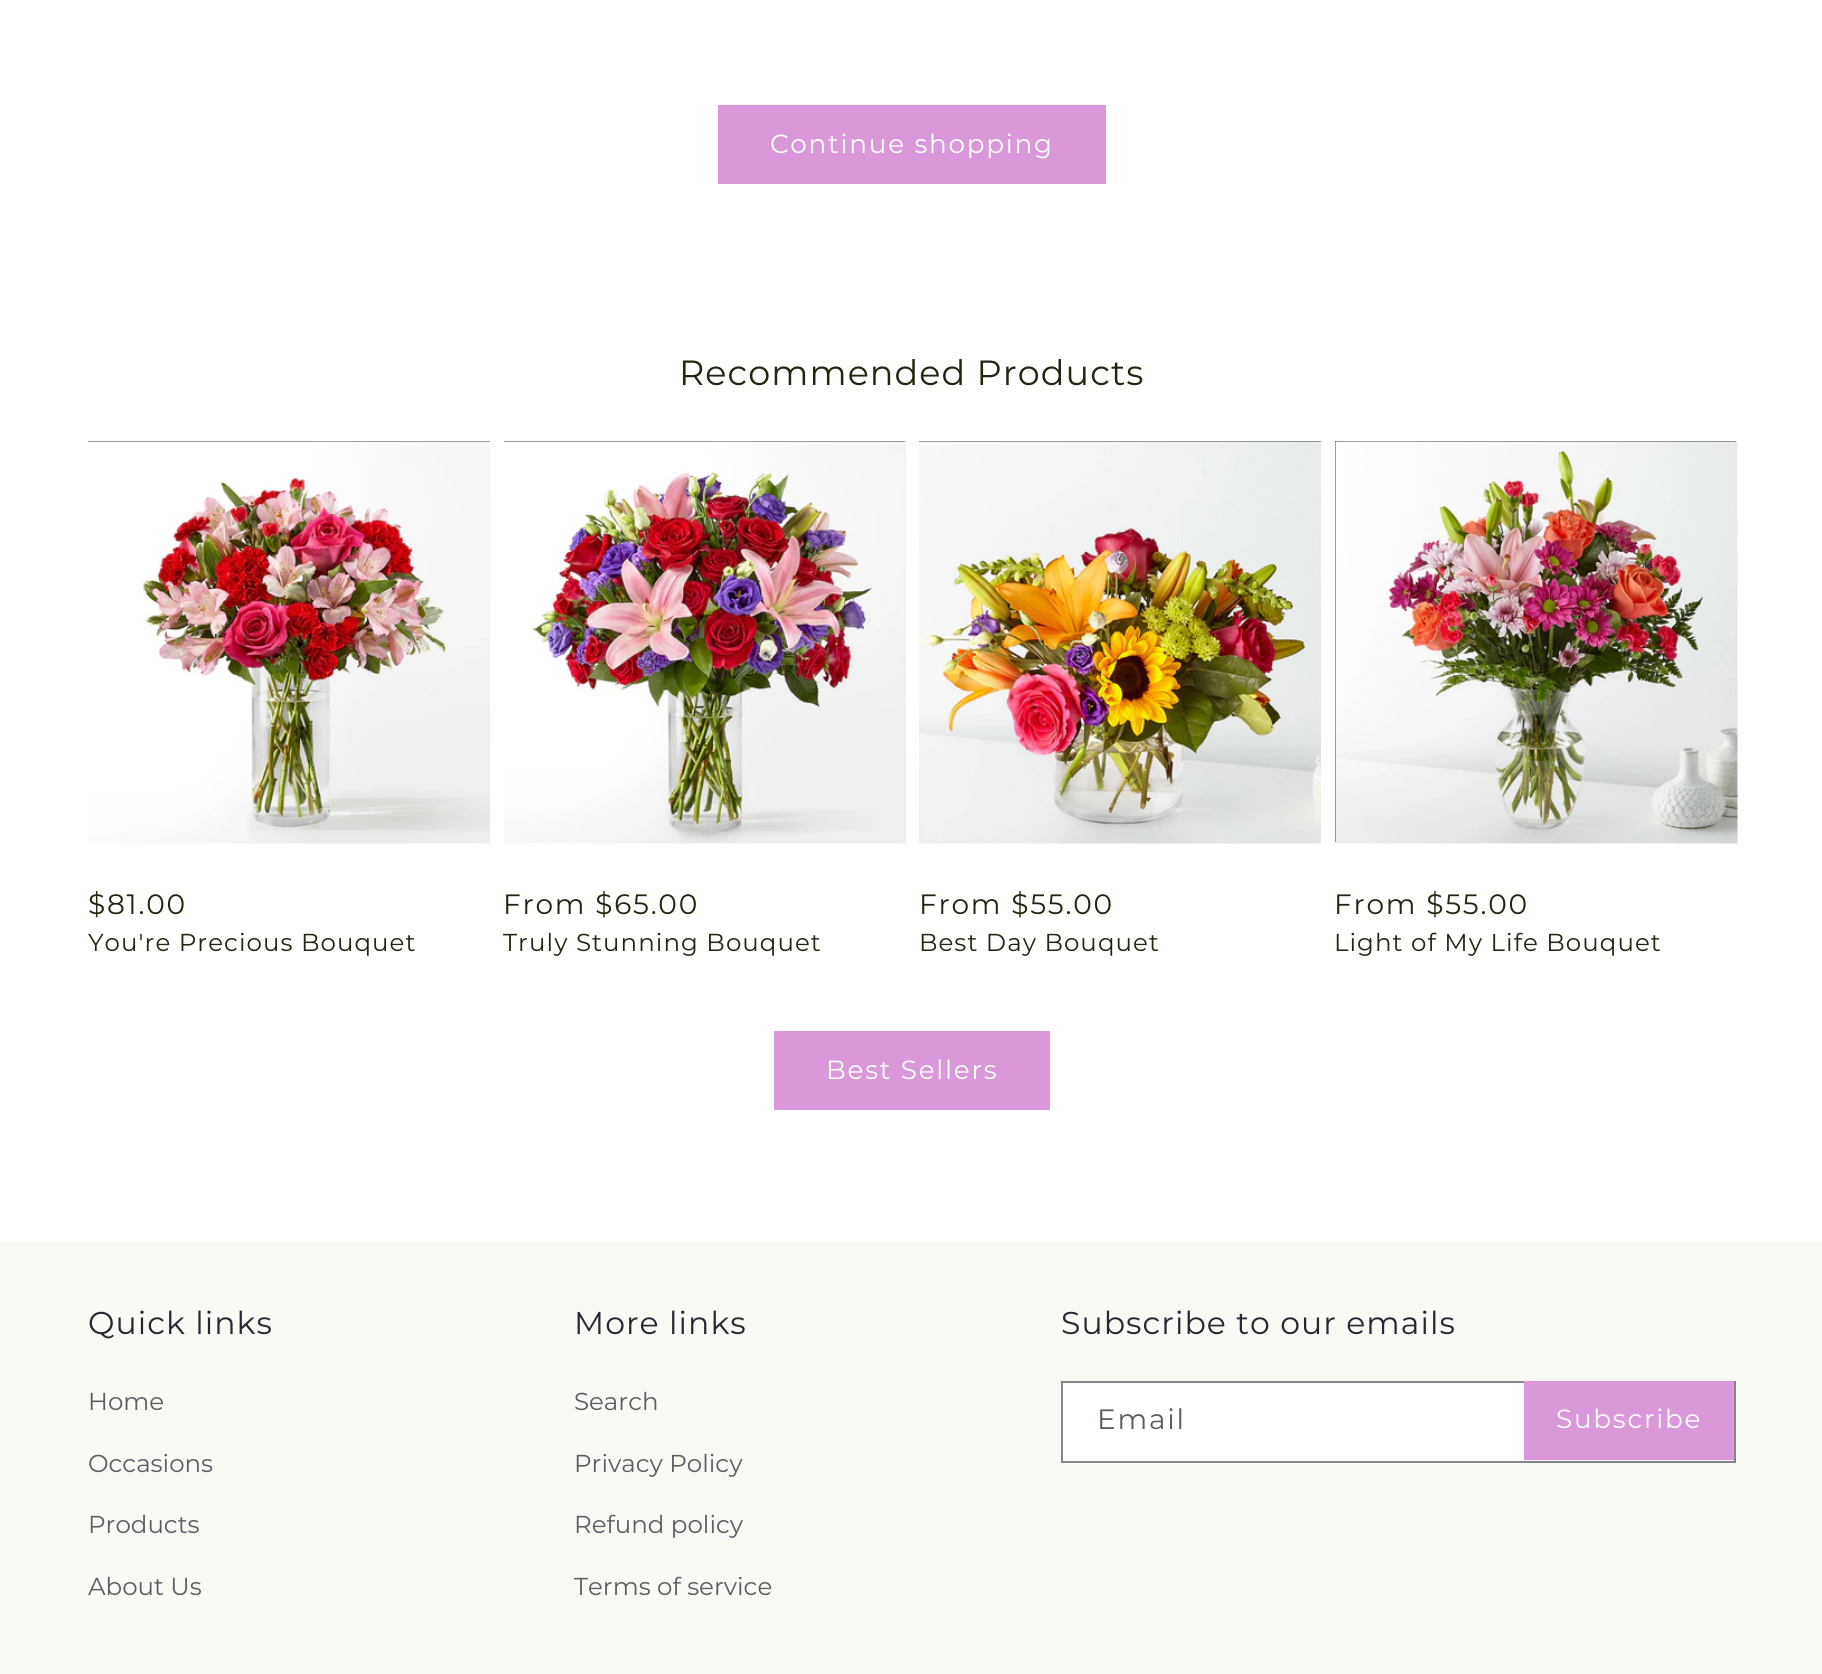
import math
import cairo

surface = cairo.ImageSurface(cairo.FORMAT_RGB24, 1822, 1674)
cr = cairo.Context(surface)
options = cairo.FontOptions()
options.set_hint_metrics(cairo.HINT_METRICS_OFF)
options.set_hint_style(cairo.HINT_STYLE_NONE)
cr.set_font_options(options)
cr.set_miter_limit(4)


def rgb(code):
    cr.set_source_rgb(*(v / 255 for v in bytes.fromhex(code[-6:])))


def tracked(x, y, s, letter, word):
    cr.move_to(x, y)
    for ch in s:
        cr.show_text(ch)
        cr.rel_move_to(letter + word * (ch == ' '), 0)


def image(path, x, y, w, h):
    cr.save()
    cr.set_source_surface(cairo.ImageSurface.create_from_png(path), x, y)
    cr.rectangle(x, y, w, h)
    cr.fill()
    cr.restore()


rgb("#ffffff")
cr.paint()
rgb("#da97da")
cr.rectangle(718, 105, 388, 79)
cr.fill()
rgb("#1e280f")
cr.rectangle(88, 441, 402, 1)
cr.fill()
image("img/1.png", 88, 441, 402, 403)
cr.rectangle(504, 441, 401, 1)
cr.fill()
image("img/2.png", 504, 441, 402, 403)
cr.rectangle(919, 441, 402, 1)
cr.fill()
image("img/3.png", 919, 441, 402, 403)
cr.rectangle(1335, 441, 401, 401)
cr.fill()
image("img/4.png", 1335, 441, 403, 403)
for x, y, w, h, color in [
    (774, 1031, 276, 79, "#da97da"),
    (0, 1241, 1822, 433, "#fafaf5"),
    (1062, 1383, 462, 78, "#ffffff"),
]:
    rgb(color)
    cr.rectangle(x, y, w, h)
    cr.fill()
cr.rectangle(1062, 1382, 673, 80)
cr.set_source_rgba(0.141, 0.157, 0.2, 0.55)
cr.stroke()
rgb("#da97da")
cr.rectangle(1524, 1381, 210, 79)
cr.fill()
cr.select_font_face("Montserrat")
cr.set_font_size(26.25)
rgb("#ffffff")
tracked(770, 153, "Continue shopping", 1.75, 0)
cr.set_font_size(35)
rgb("#1e280f")
tracked(679, 385, "Recommended Products", 1.05, 0)
cr.set_font_size(28)
tracked(88, 914, "$81.00", 1.75, 0)
cr.set_font_size(24.5)
tracked(88, 951, "You're Precious Bouquet", 1.05, 0)
cr.set_font_size(28)
tracked(503, 914, "From $65.00", 1.75, 0)
cr.set_font_size(24.5)
tracked(503, 951, "Truly Stunning Bouquet", 1.05, 0)
cr.set_font_size(28)
tracked(919, 914, "From $55.00", 1.75, 0)
cr.set_font_size(24.5)
tracked(919, 951, "Best Day Bouquet", 1.05, 0)
cr.set_font_size(28)
tracked(1334, 914, "From $55.00", 1.75, 0)
cr.set_font_size(24.5)
tracked(1334, 951, "Light of My Life Bouquet", 1.05, 0)
cr.set_font_size(26.25)
rgb("#ffffff")
tracked(826, 1079, "Best Sellers", 1.75, 0)
cr.set_font_size(31.5)
rgb("#242833")
tracked(88, 1334, "Quick links", 1.05, 0)
cr.set_font_size(24.5)
rgb("#5a5d64")
for x, y, s in [
    (88, 1410, "Home"),
    (88, 1472, "Occasions"),
    (88, 1533, "Products"),
    (88, 1595, "About Us"),
]:
    cr.move_to(x, y)
    cr.show_text(s)
cr.set_font_size(31.5)
rgb("#242833")
tracked(574, 1334, "More links", 1.05, 0)
cr.set_font_size(24.5)
rgb("#5a5d64")
for x, y, s in [
    (574, 1410, "Search"),
    (574, 1472, "Privacy Policy"),
    (574, 1533, "Refund policy"),
    (574, 1595, "Terms of service"),
]:
    cr.move_to(x, y)
    cr.show_text(s)
cr.set_font_size(31.5)
rgb("#242833")
tracked(1061, 1334, "Subscribe to our emails", 1.05, 0)
cr.set_font_size(28)
rgb("#5a5d64")
tracked(1097, 1429, "Email", 1.75, 0)
cr.set_font_size(26.25)
rgb("#ffffff")
tracked(1556, 1428, "Subscribe", 1.75, 0)
surface.write_to_png("page.png")
